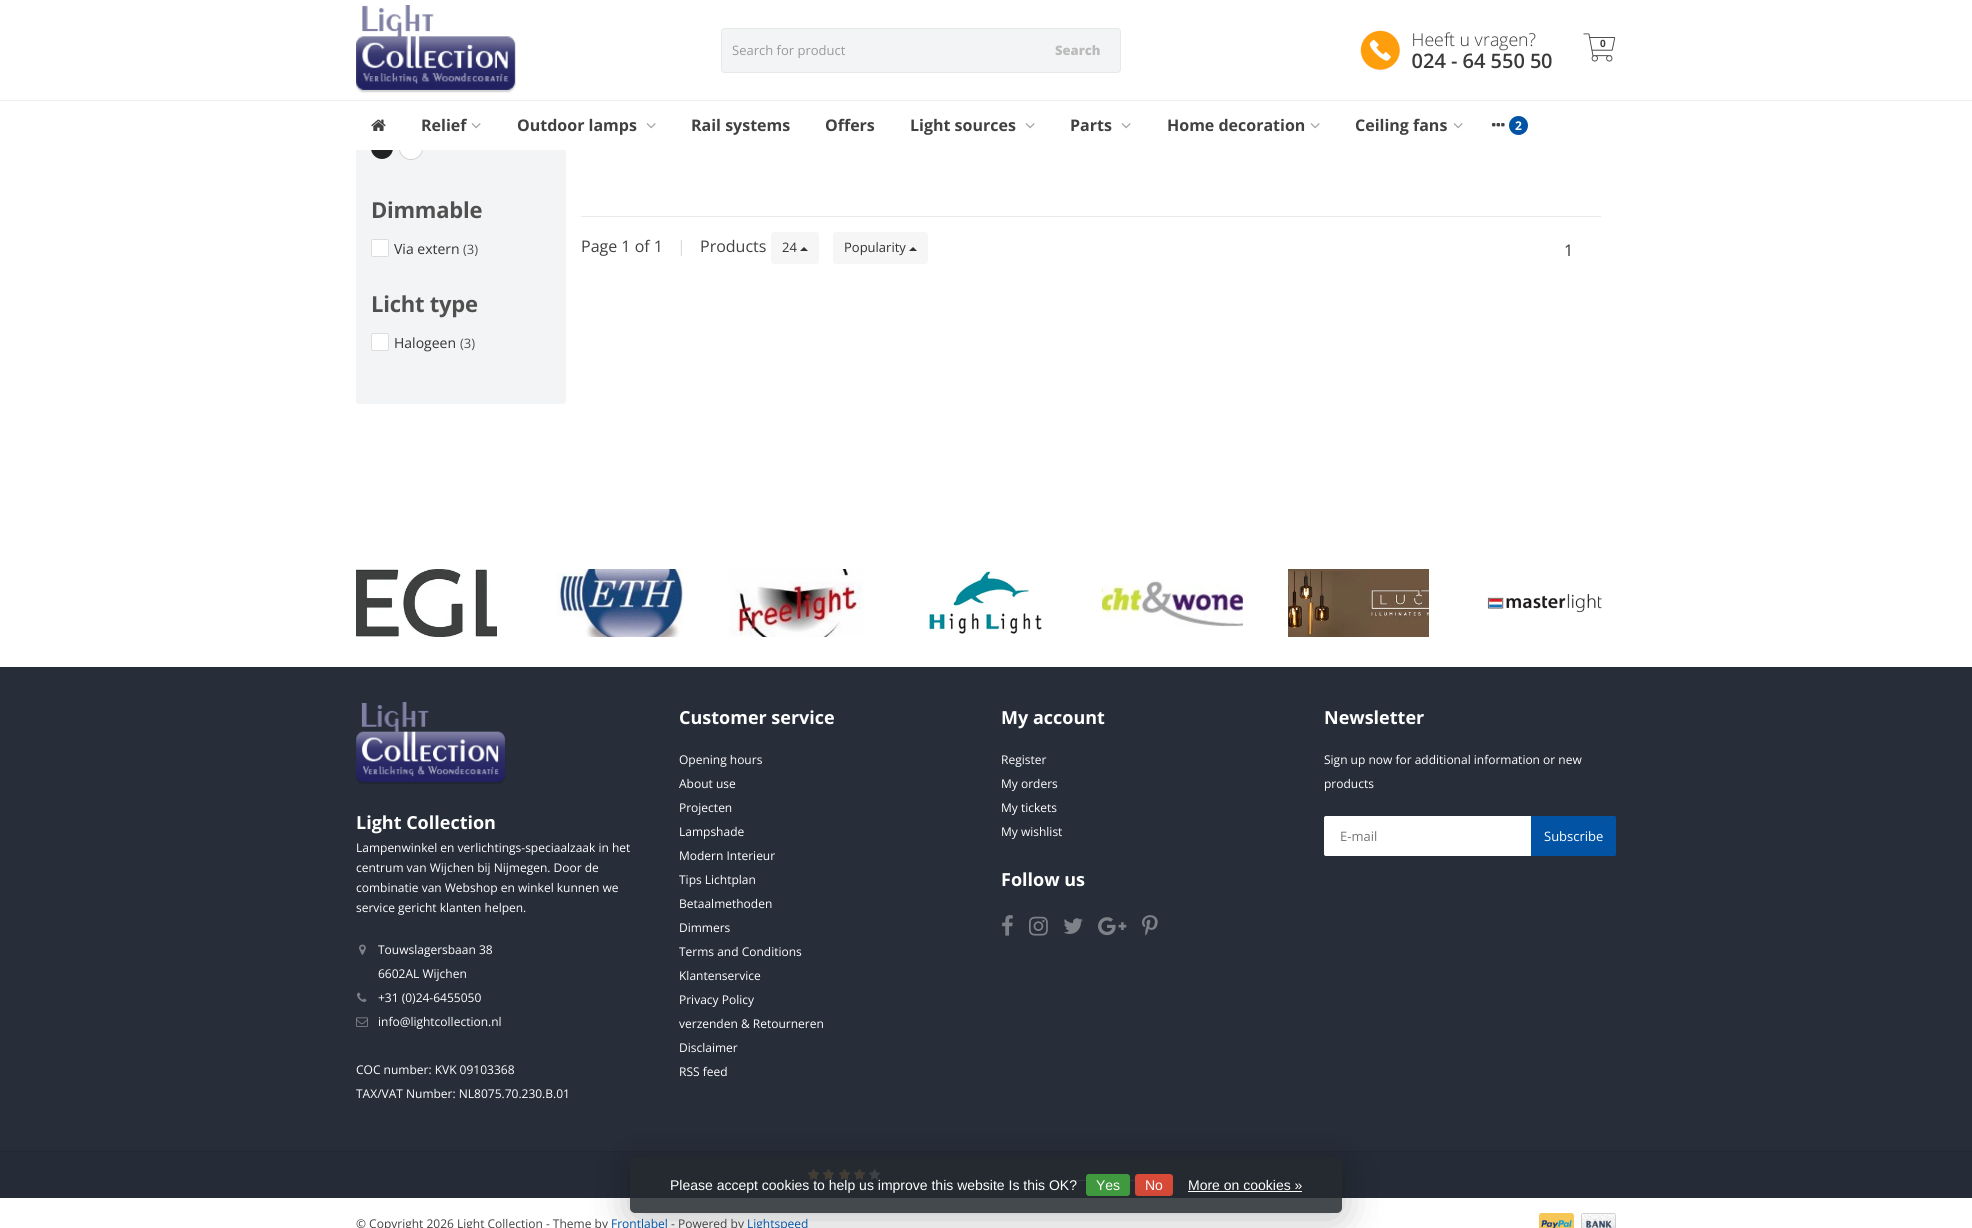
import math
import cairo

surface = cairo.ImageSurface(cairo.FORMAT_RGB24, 1972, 1228)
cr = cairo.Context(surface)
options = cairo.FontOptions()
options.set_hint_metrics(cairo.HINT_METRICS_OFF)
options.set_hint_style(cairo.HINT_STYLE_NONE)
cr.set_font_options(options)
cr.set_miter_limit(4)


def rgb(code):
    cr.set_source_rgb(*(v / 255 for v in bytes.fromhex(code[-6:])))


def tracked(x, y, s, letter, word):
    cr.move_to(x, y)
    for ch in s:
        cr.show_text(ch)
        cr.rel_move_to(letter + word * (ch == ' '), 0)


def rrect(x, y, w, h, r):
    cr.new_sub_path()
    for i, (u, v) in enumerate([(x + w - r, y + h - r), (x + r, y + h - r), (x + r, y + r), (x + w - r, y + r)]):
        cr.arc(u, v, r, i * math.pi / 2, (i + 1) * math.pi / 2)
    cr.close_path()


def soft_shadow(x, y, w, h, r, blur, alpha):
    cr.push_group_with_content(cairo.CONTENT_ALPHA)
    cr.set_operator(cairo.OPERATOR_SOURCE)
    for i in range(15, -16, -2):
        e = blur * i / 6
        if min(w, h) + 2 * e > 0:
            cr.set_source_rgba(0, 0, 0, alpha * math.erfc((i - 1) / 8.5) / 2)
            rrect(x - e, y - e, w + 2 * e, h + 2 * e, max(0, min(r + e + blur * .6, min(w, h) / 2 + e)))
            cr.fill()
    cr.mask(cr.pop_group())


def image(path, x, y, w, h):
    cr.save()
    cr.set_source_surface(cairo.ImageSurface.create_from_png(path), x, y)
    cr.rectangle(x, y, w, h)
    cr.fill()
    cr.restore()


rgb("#ffffff")
cr.paint()
rgb("#f3f4f5")
rrect(356, -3, 210, 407, 3)
cr.fill()
rgb("#222222")
cr.arc(382, 148, 11, 0, 2 * math.pi)
cr.fill()
cr.arc(411, 148, 11.5, 0, 2 * math.pi)
rgb("#cfcfd0")
cr.set_line_width(1)
cr.stroke()
rgb("#ffffff")
cr.arc(411, 148, 11, 0, 2 * math.pi)
cr.fill()
cr.rectangle(356, 0, 210, 150)
cr.fill()
image("img/1.png", 356, 5, 160, 88)
image("img/2.png", 1360, 30, 192, 40)
image("img/3.png", 1583, 33, 33, 29)
rgb("#f3f4f5")
rrect(721, 28, 400, 45, 4)
cr.fill()
rrect(721.5, 28.5, 399, 44, 3.5)
cr.set_source_rgba(0.867, 0.867, 0.867, 0.5)
cr.stroke()
image("img/4.png", 371, 119, 15, 12)
image("img/5.png", 471, 123, 10, 6)
image("img/5.png", 646, 123, 10, 6)
image("img/5.png", 1025, 123, 10, 6)
image("img/5.png", 1121, 123, 10, 6)
image("img/5.png", 1310, 123, 10, 6)
image("img/5.png", 1453, 123, 10, 6)
image("img/6.png", 1492, 123, 13, 4)
rgb("#0353a5")
cr.arc(1518.5, 125.5, 9.5, 0, 2 * math.pi)
cr.fill()
rgb("#eeeeee")
cr.rectangle(0, 100, 1972, 1)
cr.fill()
rgb("#ffffff")
rrect(371.5, 239.5, 17, 17, 1.5)
cr.fill_preserve()
rgb("#dddddd")
cr.stroke()
rgb("#ffffff")
rrect(371.5, 333.5, 17, 17, 1.5)
cr.fill_preserve()
rgb("#dddddd")
cr.stroke()
rgb("#eaeaea")
cr.rectangle(581, 216, 1020, 1)
cr.fill()
rgb("#f6f6f6")
rrect(771, 232, 48, 32, 3)
cr.fill()
rgb("#333333")
cr.new_path()
cr.move_to(808, 251)
cr.line_to(800, 251)
cr.line_to(804, 247)
cr.close_path()
cr.fill()
rgb("#f6f6f6")
rrect(833, 232, 95, 32, 3)
cr.fill()
rgb("#333333")
cr.new_path()
cr.move_to(917, 251)
cr.line_to(909, 251)
cr.line_to(913, 247)
cr.close_path()
cr.fill()
image("img/7.png", 356, 569, 141, 68)
image("img/8.png", 556, 569, 128, 68)
image("img/9.png", 729, 569, 135, 68)
image("img/10.png", 929, 571, 113, 63)
image("img/11.png", 1102, 580, 141, 47)
image("img/12.png", 1288, 569, 141, 68)
image("img/13.png", 1487, 593, 115, 20)
rgb("#272e3a")
cr.rectangle(0, 667, 1972, 484)
cr.fill()
image("img/14.png", 356, 702, 150, 82)
image("img/15.png", 359, 944, 7, 11)
image("img/16.png", 357, 992, 10, 10)
image("img/17.png", 356, 1017, 12, 10)
image("img/18.png", 1002, 915, 11, 21)
image("img/19.png", 1029, 916, 19, 20)
image("img/20.png", 1063, 918, 20, 16)
image("img/21.png", 1098, 917, 29, 19)
image("img/22.png", 1142, 915, 16, 21)
rgb("#ffffff")
rrect(1324.5, 816.5, 285, 39, 1.5)
cr.fill_preserve()
cr.stroke()
rgb("#0353a5")
cr.new_path()
cr.move_to(1531.5, 816.5)
cr.line_to(1614, 816.5)
cr.curve_to(1615, 816.5, 1615.5, 817, 1615.5, 818)
cr.line_to(1615.5, 854)
cr.curve_to(1615.5, 855, 1615, 855.5, 1614, 855.5)
cr.line_to(1531.5, 855.5)
cr.close_path()
cr.fill_preserve()
cr.stroke()
rgb("#222832")
cr.rectangle(0, 1151, 1972, 1)
cr.fill()
rgb("#252c37")
cr.rectangle(0, 1152, 1972, 46)
cr.fill()
image("img/23.png", 808, 1169, 11, 11)
image("img/23.png", 823, 1169, 11, 11)
image("img/23.png", 839, 1169, 11, 11)
image("img/23.png", 854, 1169, 11, 11)
image("img/23.png", 869, 1169, 11, 11)
image("img/24.png", 808, 1169, 12, 11)
image("img/24.png", 823, 1169, 12, 11)
image("img/24.png", 839, 1169, 12, 11)
image("img/24.png", 854, 1169, 12, 11)
rgb("#9fa2a7")
cr.rectangle(1073, 1180, 62, 1)
cr.fill()
cr.save()
cr.set_fill_rule(cairo.FILL_RULE_EVEN_ODD)
cr.new_path()
cr.move_to(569, 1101)
cr.line_to(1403, 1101)
cr.line_to(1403, 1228)
cr.line_to(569, 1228)
cr.close_path()
cr.move_to(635, 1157)
cr.line_to(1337, 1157)
cr.curve_to(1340, 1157, 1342, 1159, 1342, 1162)
cr.line_to(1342, 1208)
cr.curve_to(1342, 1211, 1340, 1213, 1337, 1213)
cr.line_to(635, 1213)
cr.curve_to(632, 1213, 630, 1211, 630, 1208)
cr.line_to(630, 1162)
cr.curve_to(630, 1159, 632, 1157, 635, 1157)
cr.close_path()
cr.clip()
rgb("#000000")
soft_shadow(630, 1162, 712, 56, 5, 20, 0.25)
cr.restore()
cr.set_source_rgba(0.141, 0.165, 0.188, 0.85)
rrect(630, 1157, 712, 56, 5)
cr.fill()
rgb("#40983f")
rrect(1086, 1174, 44, 22, 3)
cr.fill()
gradient = cairo.LinearGradient(1154, 1174, 1154, 1196)
gradient.add_color_stop_rgba(0, 0.863, 0.29, 0.22, 1)
gradient.add_color_stop_rgba(1, 0.82, 0.282, 0.212, 1)
cr.set_source(gradient)
rrect(1135, 1174, 38, 22, 3)
cr.fill()
rgb("#ffffff")
cr.rectangle(1188, 1191, 114, 1)
cr.fill()
image("img/25.png", 1539, 1213, 35, 15)
image("img/26.png", 1581, 1213, 35, 15)
cr.select_font_face("Open Sans", cairo.FONT_SLANT_NORMAL, cairo.FONT_WEIGHT_BOLD)
cr.set_font_size(10)
rgb("#414141")
cr.move_to(1600, 47)
cr.show_text("0")
cr.select_font_face("Open Sans")
cr.set_font_size(13)
rgb("#999999")
cr.move_to(732, 55)
cr.show_text("Search for product")
cr.select_font_face("Open Sans ExtraBold")
rgb("#bbbbbb")
cr.move_to(1055, 55)
cr.show_text("Search")
cr.select_font_face("Open Sans", cairo.FONT_SLANT_NORMAL, cairo.FONT_WEIGHT_BOLD)
cr.set_font_size(16)
rgb("#414141")
for x, y, s in [
    (421, 131, "Relief"),
    (517, 131, "Outdoor lamps"),
    (691, 131, "Rail systems"),
    (825, 131, "Offers"),
    (910, 131, "Light sources"),
    (1070, 131, "Parts"),
    (1167, 131, "Home decoration"),
    (1355, 131, "Ceiling fans"),
]:
    cr.move_to(x, y)
    cr.show_text(s)
cr.set_font_size(12)
rgb("#ffffff")
cr.move_to(1515, 130)
cr.show_text("2")
cr.set_font_size(22)
rgb("#505050")
tracked(371, 218, "Dimmable", -0.25, 0)
cr.select_font_face("Open Sans")
cr.set_font_size(14)
rgb("#333333")
cr.move_to(394, 254)
cr.show_text("Via extern")
cr.set_font_size(13)
rgb("#505050")
cr.move_to(463, 254)
cr.show_text("(3)")
cr.select_font_face("Open Sans", cairo.FONT_SLANT_NORMAL, cairo.FONT_WEIGHT_BOLD)
cr.set_font_size(22)
tracked(371, 312, "Licht type", -0.25, 0)
cr.select_font_face("Open Sans")
cr.set_font_size(14)
rgb("#333333")
cr.move_to(394, 348)
cr.show_text("Halogeen")
cr.set_font_size(13)
rgb("#505050")
cr.move_to(460, 348)
cr.show_text("(3)")
cr.set_font_size(16)
rgb("#414141")
cr.move_to(581, 252)
cr.show_text("Page 1 of 1")
rgb("#d9d9d9")
cr.move_to(677, 252)
cr.show_text("|")
rgb("#414141")
cr.move_to(700, 252)
cr.show_text("Products")
cr.set_font_size(13)
rgb("#333333")
cr.move_to(782, 252)
cr.show_text("24")
cr.move_to(844, 252)
cr.show_text("Popularity")
cr.set_font_size(16)
cr.move_to(1564, 256)
cr.show_text("1")
cr.select_font_face("Open Sans", cairo.FONT_SLANT_NORMAL, cairo.FONT_WEIGHT_BOLD)
cr.set_font_size(18)
rgb("#ffffff")
cr.move_to(356, 829)
cr.show_text("Light Collection")
cr.select_font_face("Open Sans")
cr.set_font_size(12)
for x, y, s in [
    (356, 852, "Lampenwinkel en verlichtings-speciaalzaak in het"),
    (356, 872, "centrum van Wijchen bij Nijmegen. Door de"),
    (356, 892, "combinatie van Webshop en winkel kunnen we"),
    (356, 912, "service gericht klanten helpen."),
    (378, 954, "Touwslagersbaan 38"),
    (378, 978, "6602AL Wijchen"),
    (378, 1002, "+31 (0)24-6455050"),
    (378, 1026, "info@lightcollection.nl"),
    (356, 1074, "COC number: KVK 09103368"),
    (356, 1098, "TAX/VAT Number: NL8075.70.230.B.01"),
]:
    cr.move_to(x, y)
    cr.show_text(s)
cr.select_font_face("Open Sans", cairo.FONT_SLANT_NORMAL, cairo.FONT_WEIGHT_BOLD)
cr.set_font_size(18)
cr.move_to(679, 724)
cr.show_text("Customer service")
cr.select_font_face("Open Sans")
cr.set_font_size(12)
for x, y, s in [
    (679, 764, "Opening hours"),
    (679, 788, "About use"),
    (679, 812, "Projecten"),
    (679, 836, "Lampshade"),
    (679, 860, "Modern Interieur"),
    (679, 884, "Tips Lichtplan"),
    (679, 908, "Betaalmethoden"),
    (679, 932, "Dimmers"),
    (679, 956, "Terms and Conditions"),
    (679, 980, "Klantenservice"),
    (679, 1004, "Privacy Policy"),
    (679, 1028, "verzenden & Retourneren"),
    (679, 1052, "Disclaimer"),
    (679, 1076, "RSS feed"),
]:
    cr.move_to(x, y)
    cr.show_text(s)
cr.select_font_face("Open Sans", cairo.FONT_SLANT_NORMAL, cairo.FONT_WEIGHT_BOLD)
cr.set_font_size(18)
cr.move_to(1001, 724)
cr.show_text("My account")
cr.select_font_face("Open Sans")
cr.set_font_size(12)
for x, y, s in [
    (1001, 764, "Register"),
    (1001, 788, "My orders"),
    (1001, 812, "My tickets"),
    (1001, 836, "My wishlist"),
]:
    cr.move_to(x, y)
    cr.show_text(s)
cr.select_font_face("Open Sans", cairo.FONT_SLANT_NORMAL, cairo.FONT_WEIGHT_BOLD)
cr.set_font_size(18)
cr.move_to(1001, 886)
cr.show_text("Follow us")
cr.move_to(1324, 724)
cr.show_text("Newsletter")
cr.select_font_face("Open Sans")
cr.set_font_size(12)
cr.move_to(1324, 764)
cr.show_text("Sign up now for additional information or new")
cr.move_to(1324, 788)
cr.show_text("products")
cr.set_font_size(13)
rgb("#757575")
cr.move_to(1340, 841)
cr.show_text("E-mail")
rgb("#ffffff")
cr.move_to(1544, 841)
cr.show_text("Subscribe")
cr.select_font_face("Liberation Sans")
cr.set_font_size(14)
for x, y, s in [
    (670, 1190, "Please accept cookies to help us improve this website Is this OK?"),
    (1096, 1190, "Yes"),
    (1145, 1190, "No"),
    (1188, 1190, "More on cookies »"),
]:
    cr.move_to(x, y)
    cr.show_text(s)
cr.select_font_face("Open Sans")
cr.set_font_size(12)
rgb("#414141")
cr.move_to(356, 1228)
cr.show_text("© Copyright 2026 Light Collection - Theme by")
rgb("#0353a5")
cr.move_to(611, 1228)
cr.show_text("Frontlabel")
rgb("#414141")
cr.move_to(671, 1228)
cr.show_text("- Powered by")
rgb("#0353a5")
cr.move_to(747, 1228)
cr.show_text("Lightspeed")
surface.write_to_png("page.png")
